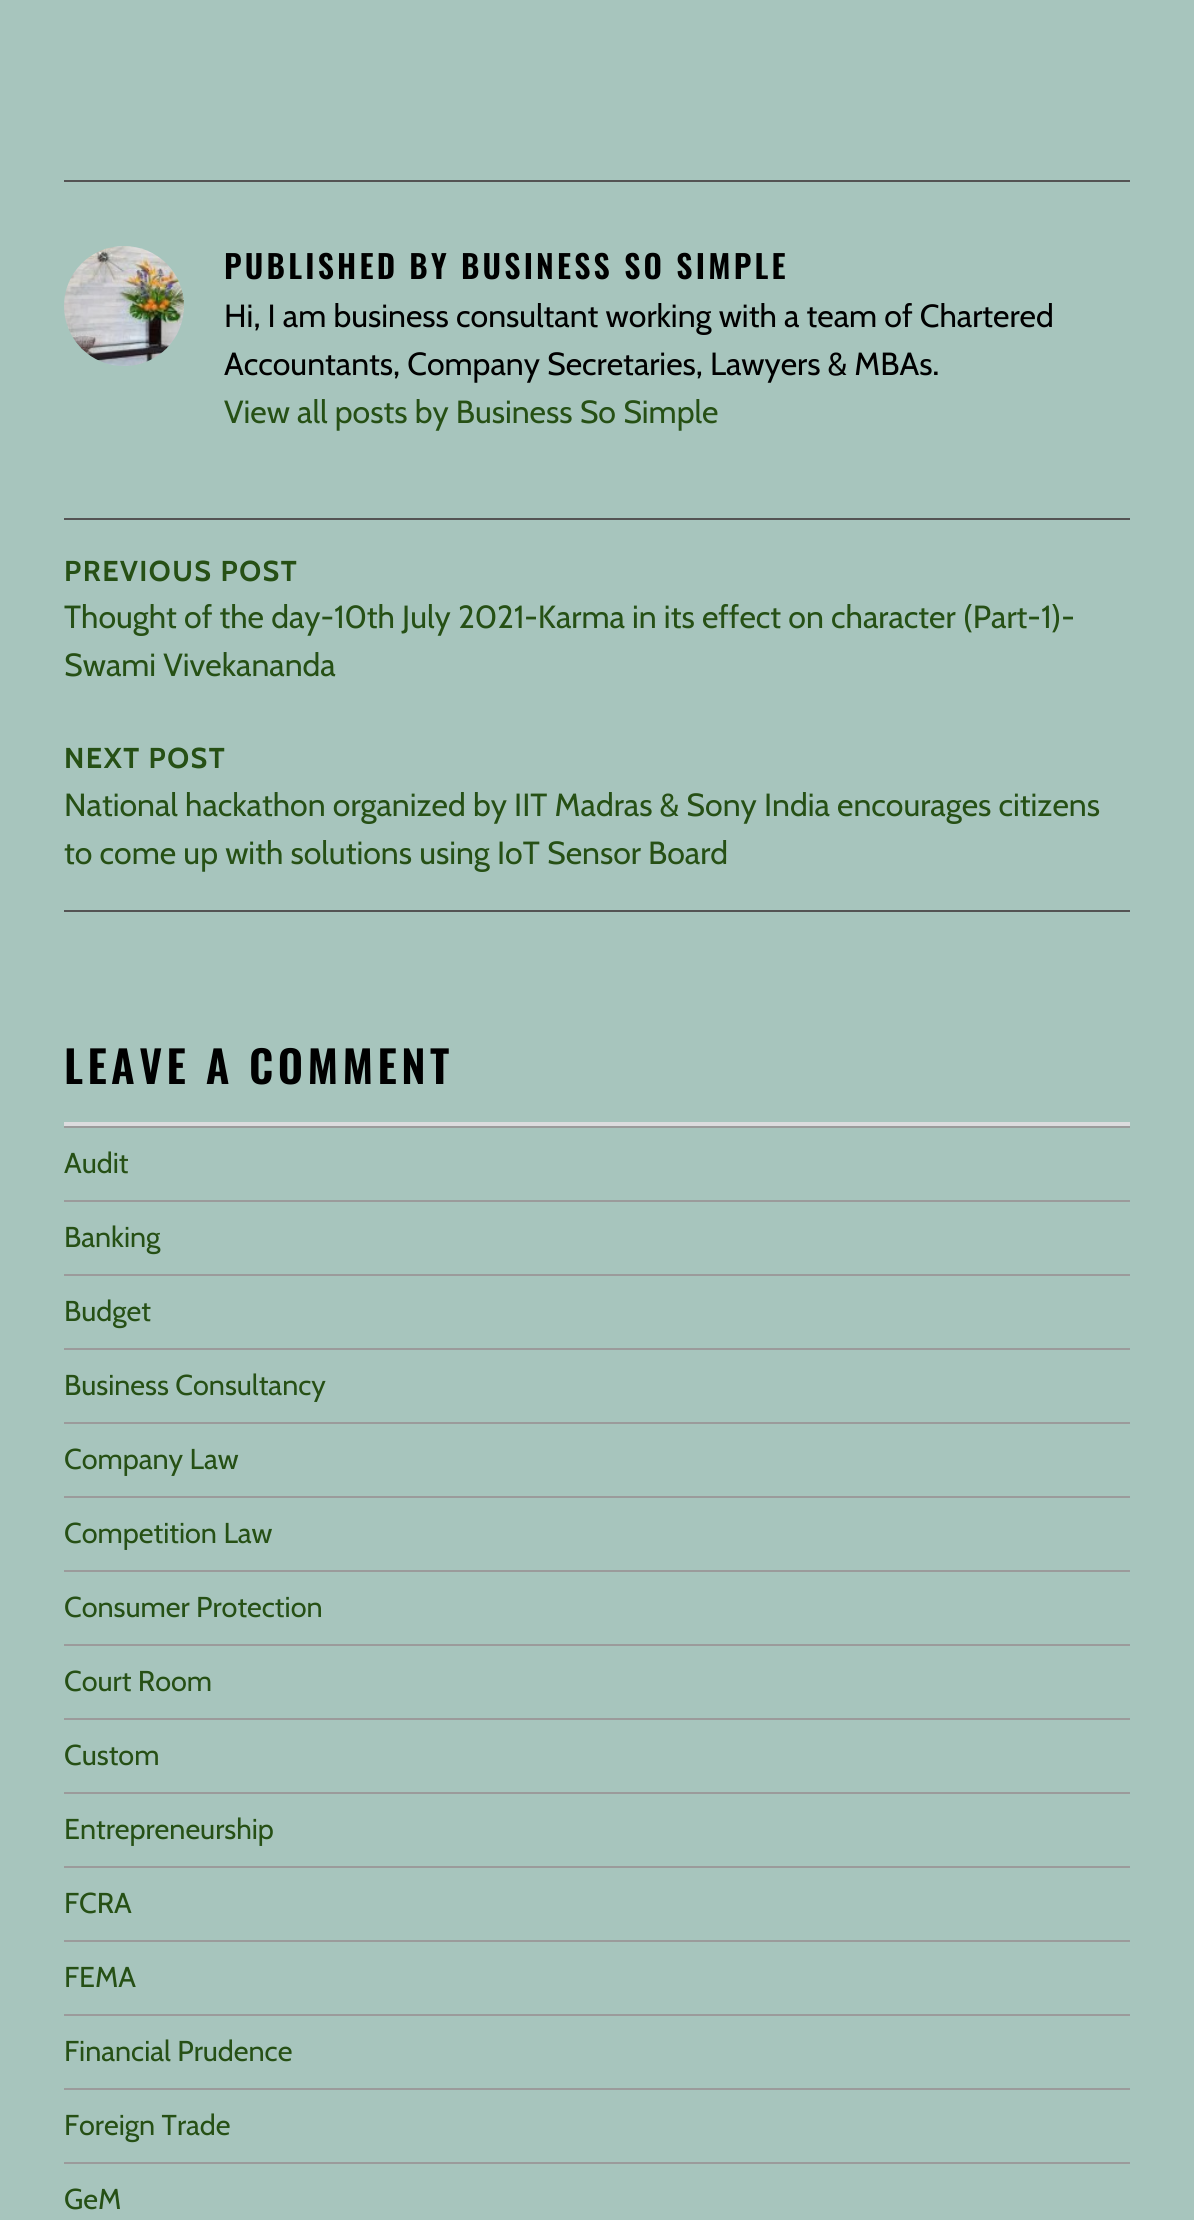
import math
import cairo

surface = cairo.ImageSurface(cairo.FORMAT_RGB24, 1194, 2220)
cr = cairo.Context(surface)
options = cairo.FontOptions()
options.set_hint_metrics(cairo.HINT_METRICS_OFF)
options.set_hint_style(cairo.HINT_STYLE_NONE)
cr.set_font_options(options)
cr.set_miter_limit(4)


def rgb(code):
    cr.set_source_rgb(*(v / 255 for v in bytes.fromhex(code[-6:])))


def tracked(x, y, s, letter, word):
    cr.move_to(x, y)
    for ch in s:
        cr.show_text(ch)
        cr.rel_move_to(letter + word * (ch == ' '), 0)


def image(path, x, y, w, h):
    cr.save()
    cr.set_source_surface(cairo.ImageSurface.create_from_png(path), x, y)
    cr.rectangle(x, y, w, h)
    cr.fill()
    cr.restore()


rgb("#a7c5bd")
cr.paint()
rgb("#545454")
cr.rectangle(64, 180, 1066, 2)
cr.fill()
image("img/1.png", 64, 246, 120, 120)
for x, y, w, h, color in [
    (64, 518, 1066, 2, "#545454"),
    (64, 910, 1066, 2, "#545454"),
    (64, 1122, 1066, 4, "#dcdcde"),
    (64, 1126, 1066, 2, "#9b9b9b"),
    (64, 1200, 1066, 2, "#9b9b9b"),
    (64, 1274, 1066, 2, "#9b9b9b"),
    (64, 1348, 1066, 2, "#9b9b9b"),
    (64, 1422, 1066, 2, "#9b9b9b"),
    (64, 1496, 1066, 2, "#9b9b9b"),
    (64, 1570, 1066, 2, "#9b9b9b"),
    (64, 1644, 1066, 2, "#9b9b9b"),
    (64, 1718, 1066, 2, "#9b9b9b"),
    (64, 1792, 1066, 2, "#9b9b9b"),
    (64, 1866, 1066, 2, "#9b9b9b"),
    (64, 1940, 1066, 2, "#9b9b9b"),
    (64, 2014, 1066, 2, "#9b9b9b"),
    (64, 2088, 1066, 2, "#9b9b9b"),
    (64, 2162, 1066, 2, "#9b9b9b"),
]:
    rgb(color)
    cr.rectangle(x, y, w, h)
    cr.fill()
cr.select_font_face("Oswald SemiBold")
cr.set_font_size(32)
rgb("#000000")
tracked(224, 279, "PUBLISHED BY BUSINESS SO SIMPLE", 3.2, 0)
cr.select_font_face("Cabin")
cr.move_to(224, 327)
cr.show_text("Hi, I am business consultant working with a team of Chartered")
cr.move_to(224, 375)
cr.show_text("Accountants, Company Secretaries, Lawyers & MBAs.")
rgb("#265015")
cr.move_to(224, 423)
cr.show_text("View all posts by Business So Simple")
cr.select_font_face("Cabin", cairo.FONT_SLANT_NORMAL, cairo.FONT_WEIGHT_BOLD)
cr.set_font_size(28.75)
tracked(64, 581, "PREVIOUS POST", 1.5, 0)
cr.select_font_face("Cabin")
cr.set_font_size(32)
cr.move_to(64, 628)
cr.show_text("Thought of the day-10th July 2021-Karma in its effect on character (Part-1)-")
cr.move_to(64, 676)
cr.show_text("Swami Vivekananda")
cr.select_font_face("Cabin", cairo.FONT_SLANT_NORMAL, cairo.FONT_WEIGHT_BOLD)
cr.set_font_size(28.75)
tracked(64, 768, "NEXT POST", 1.5, 0)
cr.select_font_face("Cabin")
cr.set_font_size(32)
cr.move_to(64, 816)
cr.show_text("National hackathon organized by IIT Madras & Sony India encourages citizens")
cr.move_to(64, 864)
cr.show_text("to come up with solutions using IoT Sensor Board")
cr.select_font_face("Oswald SemiBold")
cr.set_font_size(44)
rgb("#000000")
tracked(64, 1084, "LEAVE A COMMENT", 4.4, 0)
cr.select_font_face("Cabin")
cr.set_font_size(28.75)
rgb("#265015")
for x, y, s in [
    (64, 1173, "Audit"),
    (64, 1247, "Banking"),
    (64, 1321, "Budget"),
    (64, 1395, "Business Consultancy"),
    (64, 1469, "Company Law"),
    (64, 1543, "Competition Law"),
    (64, 1617, "Consumer Protection"),
    (64, 1691, "Court Room"),
    (64, 1765, "Custom"),
    (64, 1839, "Entrepreneurship"),
    (64, 1913, "FCRA"),
    (64, 1987, "FEMA"),
    (64, 2061, "Financial Prudence"),
    (64, 2135, "Foreign Trade"),
    (64, 2209, "GeM"),
]:
    cr.move_to(x, y)
    cr.show_text(s)
surface.write_to_png("page.png")
